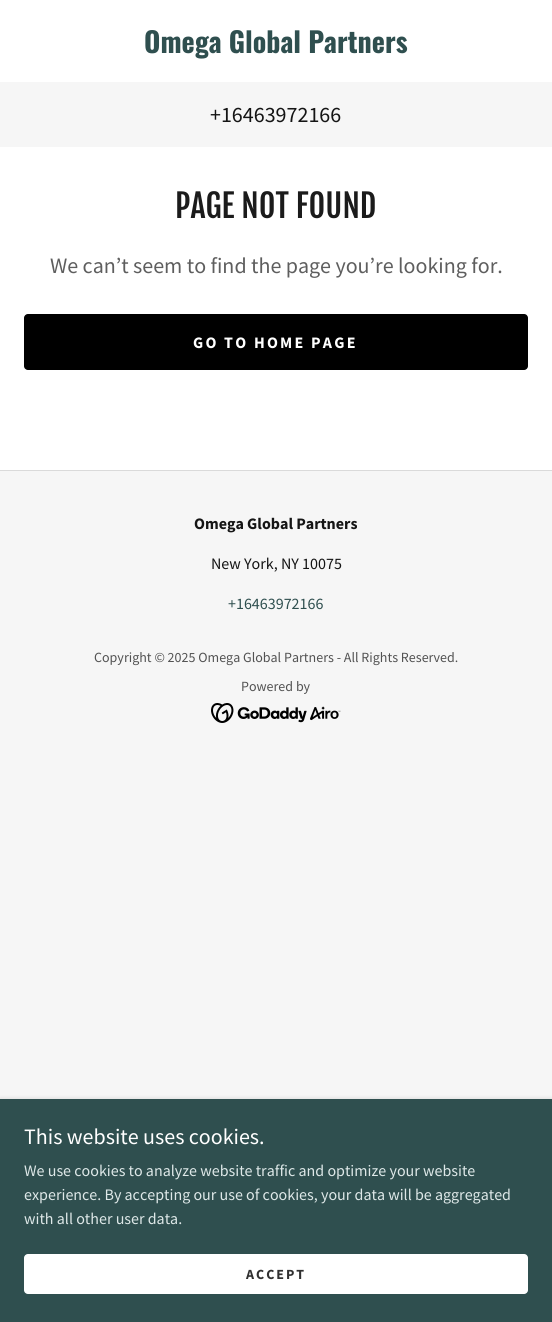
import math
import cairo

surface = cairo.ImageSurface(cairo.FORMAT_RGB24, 552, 1322)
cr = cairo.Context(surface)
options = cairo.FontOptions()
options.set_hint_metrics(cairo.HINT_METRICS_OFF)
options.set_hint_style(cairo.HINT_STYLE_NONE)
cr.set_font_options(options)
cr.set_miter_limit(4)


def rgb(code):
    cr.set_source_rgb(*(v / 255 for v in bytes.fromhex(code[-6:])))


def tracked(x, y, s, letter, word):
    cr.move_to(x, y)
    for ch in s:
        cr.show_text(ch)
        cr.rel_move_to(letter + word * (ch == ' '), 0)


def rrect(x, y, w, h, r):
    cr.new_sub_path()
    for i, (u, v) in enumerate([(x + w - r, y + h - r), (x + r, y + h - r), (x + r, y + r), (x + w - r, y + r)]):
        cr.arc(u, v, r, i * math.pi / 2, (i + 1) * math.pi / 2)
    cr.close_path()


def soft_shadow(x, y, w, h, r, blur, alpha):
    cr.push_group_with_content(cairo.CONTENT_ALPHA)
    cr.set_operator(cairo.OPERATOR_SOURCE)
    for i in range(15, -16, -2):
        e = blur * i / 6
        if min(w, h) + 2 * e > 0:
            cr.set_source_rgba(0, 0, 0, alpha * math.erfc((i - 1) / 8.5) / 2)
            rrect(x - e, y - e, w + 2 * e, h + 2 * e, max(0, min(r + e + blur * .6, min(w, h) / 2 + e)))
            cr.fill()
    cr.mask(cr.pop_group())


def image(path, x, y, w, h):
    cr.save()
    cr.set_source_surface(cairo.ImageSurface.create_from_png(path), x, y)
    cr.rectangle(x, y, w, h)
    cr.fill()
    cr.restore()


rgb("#f6f6f6")
cr.paint()
rgb("#ffffff")
cr.rectangle(0, 0, 552, 82)
cr.fill()
cr.rectangle(0, 147, 552, 323)
cr.fill()
rgb("#000000")
rrect(24, 314, 504, 56, 4)
cr.fill()
rgb("#dadada")
cr.rectangle(0, 470, 552, 1)
cr.fill()
image("img/1.png", 211, 703, 130, 20)
rgb("#000000")
soft_shadow(0, 1101, 552, 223, 0, 3, 0.3)
rgb("#2f4f4f")
cr.rectangle(0, 1099, 552, 223)
cr.fill()
rgb("#ffffff")
rrect(24, 1254, 504, 40, 4)
cr.fill()
cr.select_font_face("Oswald", cairo.FONT_SLANT_NORMAL, cairo.FONT_WEIGHT_BOLD)
cr.set_font_size(28)
rgb("#2f4f4f")
cr.move_to(144, 53)
cr.show_text("Omega Global Partners")
cr.select_font_face("Source Sans Pro")
cr.set_font_size(22)
rgb("#151515")
cr.move_to(210, 122)
cr.show_text("+16463972166")
cr.select_font_face("Fjalla One")
cr.set_font_size(32)
rgb("#1b1b1b")
cr.move_to(175, 218)
cr.show_text("PAGE NOT FOUND")
cr.select_font_face("Source Sans Pro")
cr.set_font_size(22)
rgb("#5e5e5e")
cr.move_to(50, 273)
cr.show_text("We can’t seem to find the page you’re looking for.")
cr.select_font_face("Source Sans Pro", cairo.FONT_SLANT_NORMAL, cairo.FONT_WEIGHT_BOLD)
cr.set_font_size(16)
rgb("#ffffff")
tracked(193, 348, "GO TO HOME PAGE", 2.25, 0)
rgb("#151515")
cr.move_to(194, 529)
cr.show_text("Omega Global Partners")
cr.select_font_face("Source Sans Pro")
cr.move_to(211, 569)
cr.show_text("New York, NY 10075")
rgb("#2f4f4f")
cr.move_to(228, 609)
cr.show_text("+16463972166")
cr.set_font_size(14)
rgb("#525252")
cr.move_to(94, 662)
cr.show_text("Copyright © 2025 Omega Global Partners - All Rights Reserved.")
cr.move_to(241, 691)
cr.show_text("Powered by")
cr.set_font_size(22)
rgb("#ffffff")
cr.move_to(24, 1144)
cr.show_text("This website uses cookies.")
cr.set_font_size(16)
rgb("#dee8e8")
for x, y, s in [
    (24, 1176, "We use cookies to analyze website traffic and optimize your website"),
    (24, 1200, "experience. By accepting our use of cookies, your data will be aggregated"),
    (24, 1224, "with all other user data."),
]:
    cr.move_to(x, y)
    cr.show_text(s)
cr.select_font_face("Source Sans Pro", cairo.FONT_SLANT_NORMAL, cairo.FONT_WEIGHT_BOLD)
cr.set_font_size(14)
rgb("#303030")
tracked(246, 1279, "ACCEPT", 2, 0)
surface.write_to_png("page.png")
